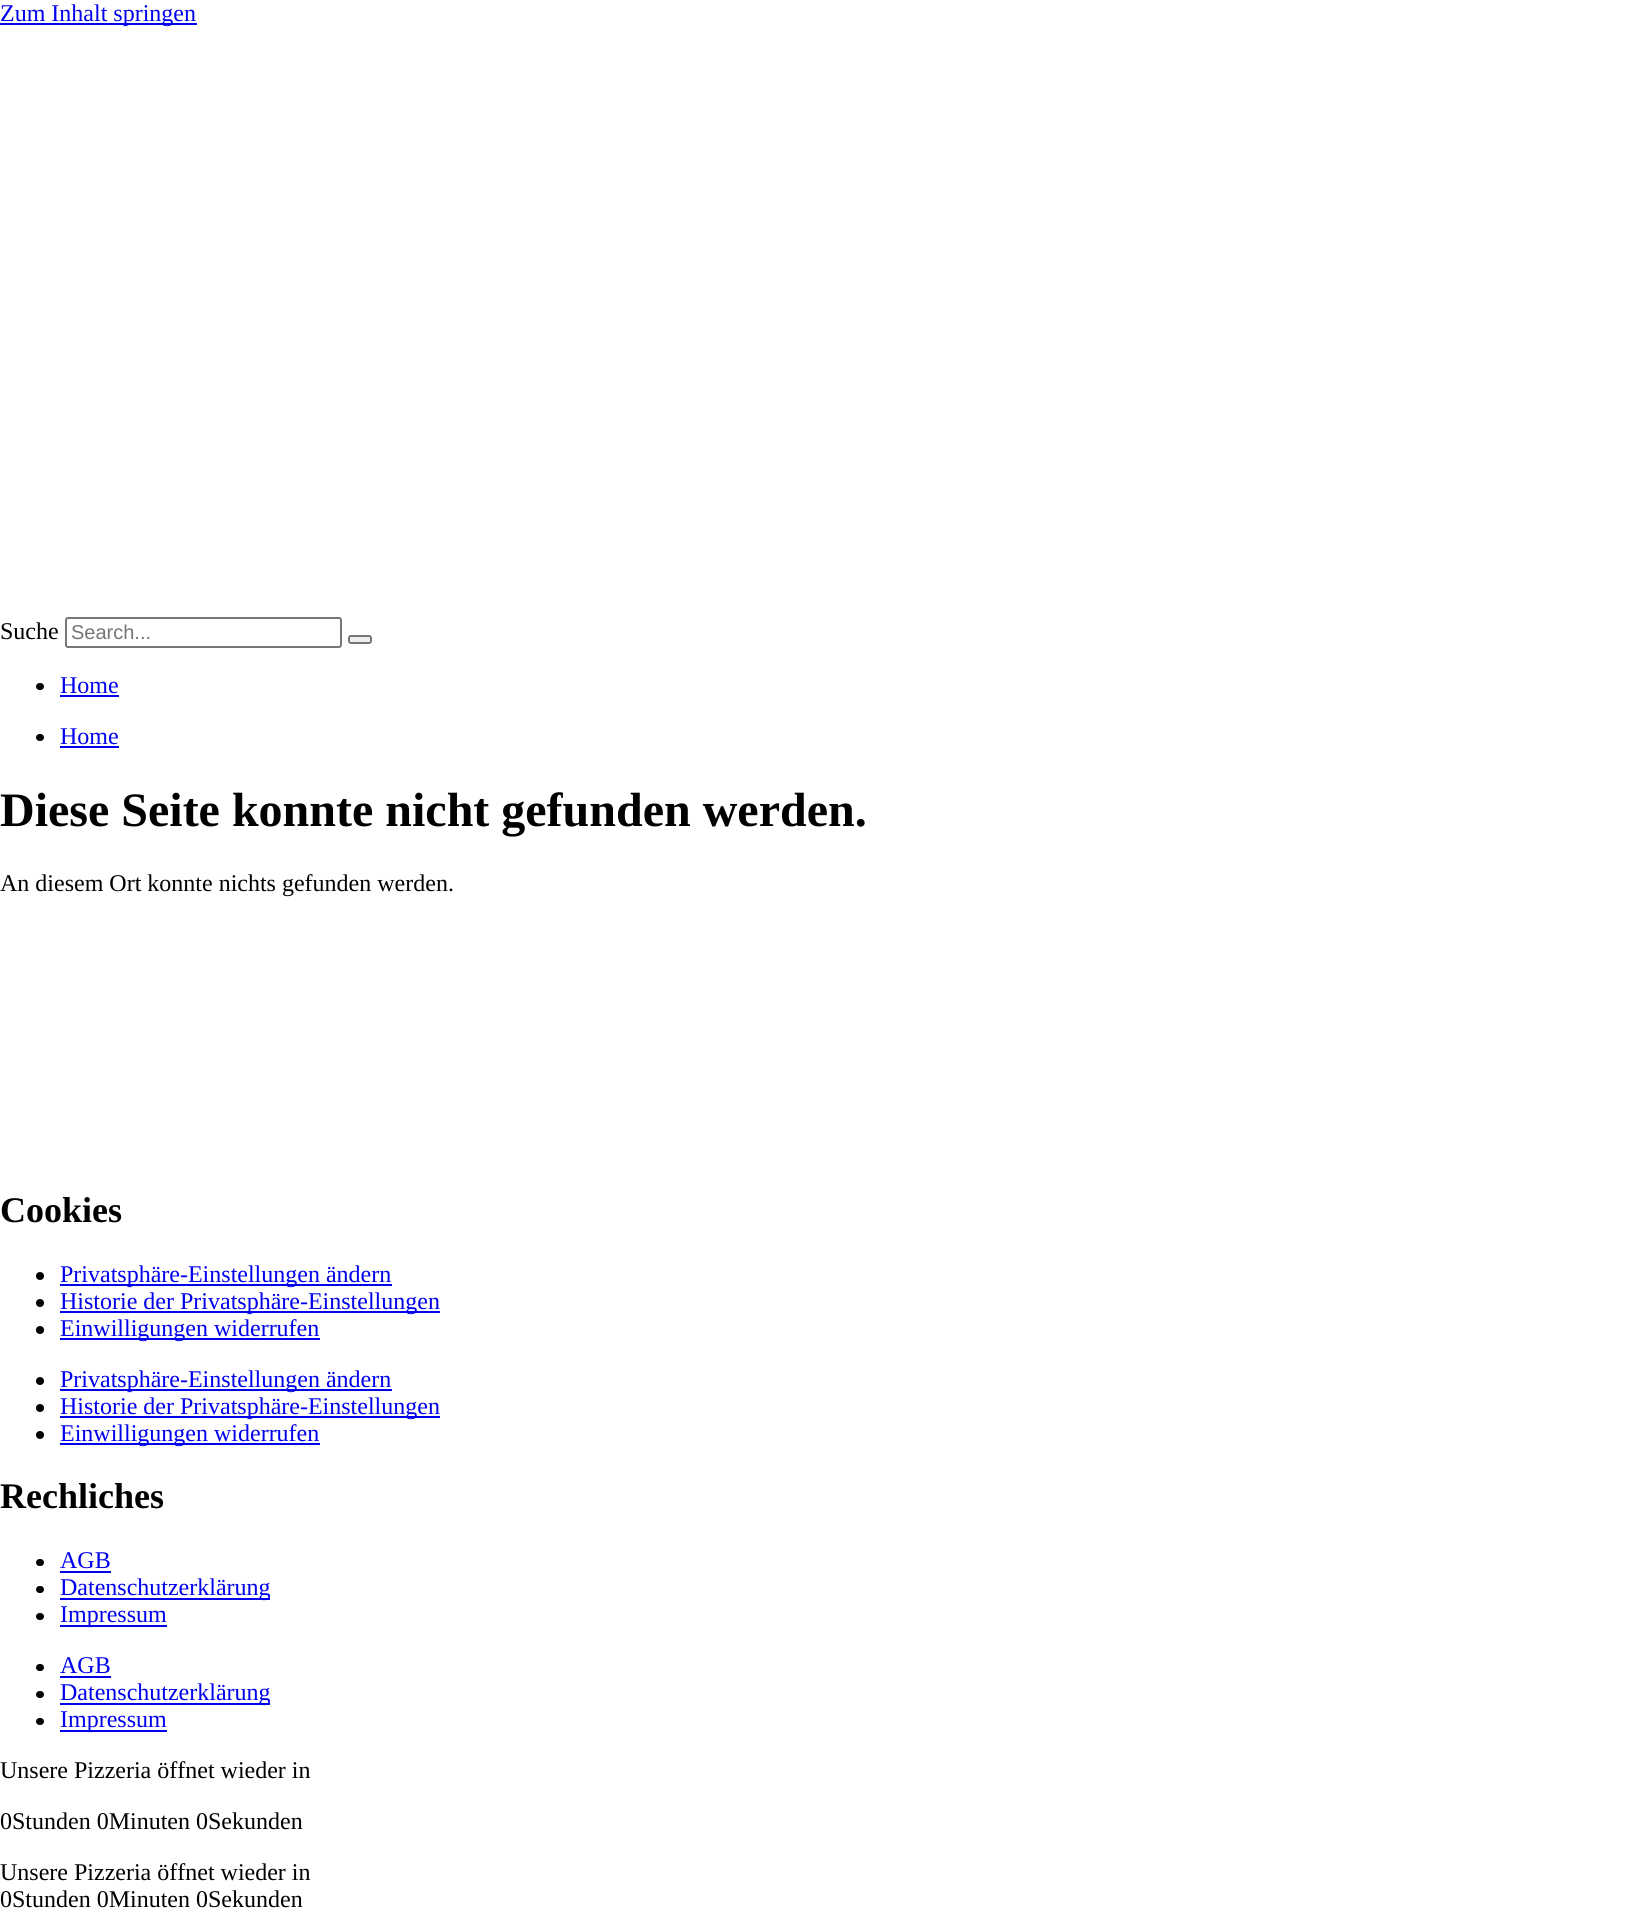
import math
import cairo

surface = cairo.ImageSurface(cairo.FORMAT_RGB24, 1639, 1918)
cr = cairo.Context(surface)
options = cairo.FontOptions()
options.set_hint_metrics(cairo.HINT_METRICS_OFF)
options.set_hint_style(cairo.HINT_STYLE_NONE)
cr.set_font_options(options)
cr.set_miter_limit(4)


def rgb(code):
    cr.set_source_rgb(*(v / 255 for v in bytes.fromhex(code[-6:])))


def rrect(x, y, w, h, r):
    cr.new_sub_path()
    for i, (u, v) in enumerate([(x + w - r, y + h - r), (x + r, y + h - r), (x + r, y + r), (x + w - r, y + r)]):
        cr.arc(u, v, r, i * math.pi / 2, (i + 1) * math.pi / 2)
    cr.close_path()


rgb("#ffffff")
cr.paint()
rgb("#0000ee")
cr.rectangle(0, 23, 197, 2)
cr.fill()
rrect(66, 618, 275, 29, 2)
rgb("#767676")
cr.stroke()
rgb("#efefef")
rrect(349, 636, 22, 7, 2)
cr.fill_preserve()
rgb("#767676")
cr.stroke()
rgb("#000000")
rrect(36, 683, 8, 7, 3.5)
cr.fill()
rgb("#0000ee")
cr.rectangle(60, 695, 59, 2)
cr.fill()
rgb("#000000")
rrect(36, 734, 8, 7, 3.5)
cr.fill()
rgb("#0000ee")
cr.rectangle(60, 746, 59, 2)
cr.fill()
rgb("#000000")
cr.arc(40, 1276, 4, 0, 2 * math.pi)
cr.fill()
rgb("#0000ee")
cr.rectangle(60, 1284, 332, 2)
cr.fill()
rgb("#000000")
cr.arc(40, 1303, 4, 0, 2 * math.pi)
cr.fill()
rgb("#0000ee")
cr.rectangle(60, 1311, 380, 2)
cr.fill()
rgb("#000000")
cr.arc(40, 1330, 4, 0, 2 * math.pi)
cr.fill()
rgb("#0000ee")
cr.rectangle(60, 1338, 260, 2)
cr.fill()
rgb("#000000")
cr.arc(40, 1381, 4, 0, 2 * math.pi)
cr.fill()
rgb("#0000ee")
cr.rectangle(60, 1389, 332, 2)
cr.fill()
rgb("#000000")
cr.arc(40, 1408, 4, 0, 2 * math.pi)
cr.fill()
rgb("#0000ee")
cr.rectangle(60, 1416, 380, 2)
cr.fill()
rgb("#000000")
cr.arc(40, 1435, 4, 0, 2 * math.pi)
cr.fill()
rgb("#0000ee")
cr.rectangle(60, 1443, 260, 2)
cr.fill()
rgb("#000000")
rrect(36, 1559, 8, 7, 3.5)
cr.fill()
rgb("#0000ee")
cr.rectangle(60, 1571, 51, 2)
cr.fill()
rgb("#000000")
rrect(36, 1586, 8, 7, 3.5)
cr.fill()
rgb("#0000ee")
cr.rectangle(60, 1598, 210, 2)
cr.fill()
rgb("#000000")
rrect(36, 1613, 8, 7, 3.5)
cr.fill()
rgb("#0000ee")
cr.rectangle(60, 1625, 107, 2)
cr.fill()
rgb("#000000")
rrect(36, 1664, 8, 7, 3.5)
cr.fill()
rgb("#0000ee")
cr.rectangle(60, 1676, 51, 2)
cr.fill()
rgb("#000000")
rrect(36, 1691, 8, 7, 3.5)
cr.fill()
rgb("#0000ee")
cr.rectangle(60, 1703, 210, 2)
cr.fill()
rgb("#000000")
rrect(36, 1718, 8, 7, 3.5)
cr.fill()
rgb("#0000ee")
cr.rectangle(60, 1730, 107, 2)
cr.fill()
cr.select_font_face("Liberation Serif")
cr.set_font_size(24)
cr.move_to(0, 21)
cr.show_text("Zum Inhalt springen")
rgb("#000000")
cr.move_to(0, 639)
cr.show_text("Suche")
cr.select_font_face("Liberation Sans")
cr.set_font_size(20)
rgb("#757575")
cr.move_to(71, 639)
cr.show_text("Search...")
cr.select_font_face("Liberation Serif")
cr.set_font_size(24)
rgb("#0000ee")
cr.move_to(60, 693)
cr.show_text("Home")
cr.move_to(60, 744)
cr.show_text("Home")
cr.select_font_face("Liberation Serif", cairo.FONT_SLANT_NORMAL, cairo.FONT_WEIGHT_BOLD)
cr.set_font_size(48)
rgb("#000000")
cr.move_to(0, 826)
cr.show_text("Diese Seite konnte nicht gefunden werden.")
cr.select_font_face("Liberation Serif")
cr.set_font_size(24)
cr.move_to(0, 891)
cr.show_text("An diesem Ort konnte nichts gefunden werden.")
cr.select_font_face("Liberation Serif", cairo.FONT_SLANT_NORMAL, cairo.FONT_WEIGHT_BOLD)
cr.set_font_size(36)
cr.move_to(0, 1222)
cr.show_text("Cookies")
cr.select_font_face("Liberation Serif")
cr.set_font_size(24)
rgb("#0000ee")
for x, y, s in [
    (60, 1282, "Privatsphäre-Einstellungen ändern"),
    (60, 1309, "Historie der Privatsphäre-Einstellungen"),
    (60, 1336, "Einwilligungen widerrufen"),
    (60, 1387, "Privatsphäre-Einstellungen ändern"),
    (60, 1414, "Historie der Privatsphäre-Einstellungen"),
    (60, 1441, "Einwilligungen widerrufen"),
]:
    cr.move_to(x, y)
    cr.show_text(s)
cr.select_font_face("Liberation Serif", cairo.FONT_SLANT_NORMAL, cairo.FONT_WEIGHT_BOLD)
cr.set_font_size(36)
rgb("#000000")
cr.move_to(0, 1508)
cr.show_text("Rechliches")
cr.select_font_face("Liberation Serif")
cr.set_font_size(24)
rgb("#0000ee")
for x, y, s in [
    (60, 1568, "AGB"),
    (60, 1595, "Datenschutzerklärung"),
    (60, 1622, "Impressum"),
    (60, 1673, "AGB"),
    (60, 1700, "Datenschutzerklärung"),
    (60, 1727, "Impressum"),
]:
    cr.move_to(x, y)
    cr.show_text(s)
rgb("#000000")
for x, y, s in [
    (0, 1778, "Unsere Pizzeria öffnet wieder in"),
    (0, 1829, "0Stunden 0Minuten 0Sekunden"),
    (0, 1880, "Unsere Pizzeria öffnet wieder in"),
    (0, 1907, "0Stunden 0Minuten 0Sekunden"),
]:
    cr.move_to(x, y)
    cr.show_text(s)
surface.write_to_png("page.png")
